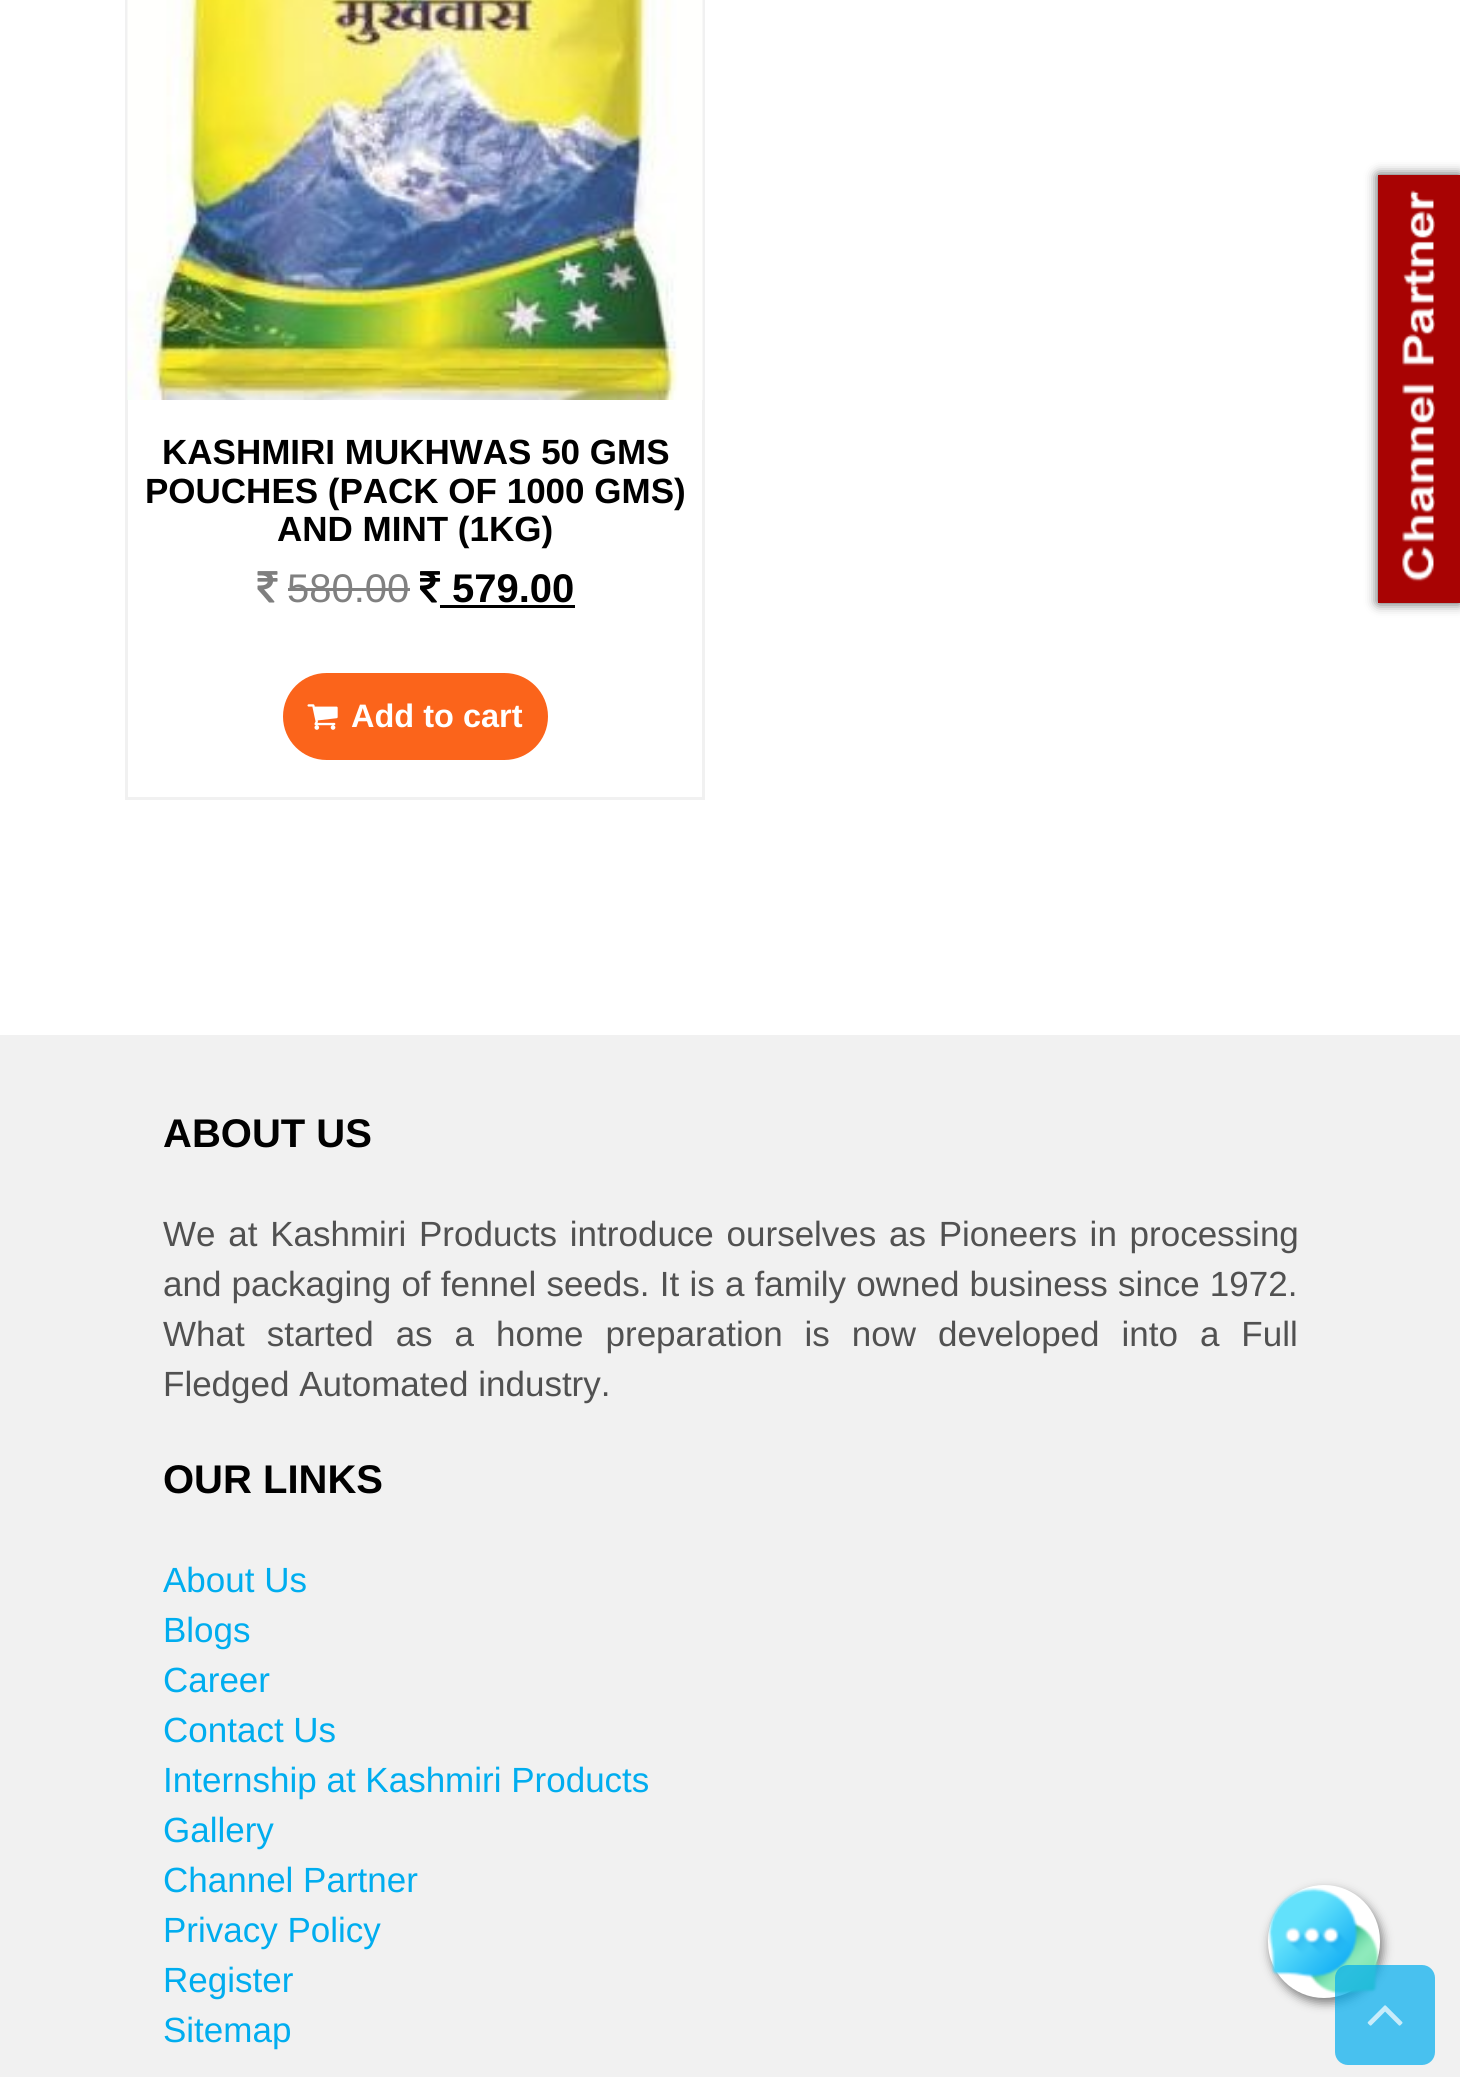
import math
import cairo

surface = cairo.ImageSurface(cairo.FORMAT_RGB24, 1460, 2077)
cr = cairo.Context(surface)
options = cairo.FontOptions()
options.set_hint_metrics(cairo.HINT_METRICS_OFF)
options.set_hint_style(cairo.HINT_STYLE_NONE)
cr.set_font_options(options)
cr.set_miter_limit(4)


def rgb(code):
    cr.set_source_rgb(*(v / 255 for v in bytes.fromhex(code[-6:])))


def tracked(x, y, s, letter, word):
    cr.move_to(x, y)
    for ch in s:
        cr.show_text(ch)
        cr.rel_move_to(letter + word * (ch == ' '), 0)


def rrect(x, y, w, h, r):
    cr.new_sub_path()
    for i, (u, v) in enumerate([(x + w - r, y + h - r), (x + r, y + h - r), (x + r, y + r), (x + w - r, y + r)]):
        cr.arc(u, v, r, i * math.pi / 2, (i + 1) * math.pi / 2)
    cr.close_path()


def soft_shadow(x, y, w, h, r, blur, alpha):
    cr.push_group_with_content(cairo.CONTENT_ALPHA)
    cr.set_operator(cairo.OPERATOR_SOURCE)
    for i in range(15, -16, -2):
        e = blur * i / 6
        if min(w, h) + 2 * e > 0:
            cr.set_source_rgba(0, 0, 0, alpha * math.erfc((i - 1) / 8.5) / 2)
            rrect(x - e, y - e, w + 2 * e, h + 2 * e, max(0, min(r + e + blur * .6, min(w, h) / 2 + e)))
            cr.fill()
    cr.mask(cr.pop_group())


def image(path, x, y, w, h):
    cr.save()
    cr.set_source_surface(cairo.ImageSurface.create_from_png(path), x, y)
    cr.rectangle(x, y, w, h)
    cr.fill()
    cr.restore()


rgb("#ffffff")
cr.paint()
rgb("#494949")
soft_shadow(1378, 175, 82, 428, 0, 6, 1)
rgb("#a80303")
cr.rectangle(1378, 175, 82, 428)
cr.fill()
image("img/1.png", 1402, 190, 33, 392)
cr.rectangle(126.5, -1.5, 577, 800)
rgb("#f1f1f1")
cr.set_line_width(3)
cr.stroke()
image("img/2.png", 127, 0, 576, 400)
image("img/3.png", 257, 571, 21, 32)
rgb("#808080")
cr.rectangle(288, 588, 122, 3)
cr.fill()
image("img/4.png", 420, 571, 21, 32)
rgb("#000000")
cr.rectangle(440, 605, 135, 3)
cr.fill()
rgb("#fb641b")
rrect(283, 673, 265, 87, 43.5)
cr.fill()
image("img/5.png", 307, 704, 31, 26)
rgb("#f1f1f1")
cr.rectangle(0, 1035, 1460, 1042)
cr.fill()
rgb("#808080")
soft_shadow(1270, 1890, 113, 113, 56.5, 5, 1)
rgb("#ffffff")
rrect(1268, 1885, 112, 113, 56)
cr.fill()
image("img/7.png", 1268, 1888, 111, 107)
cr.set_source_rgba(0, 0.678, 0.937, 0.7)
rrect(1335, 1965, 100, 100, 13)
cr.fill()
image("img/6.png", 1367, 2005, 36, 21)
cr.select_font_face("Liberation Sans", cairo.FONT_SLANT_NORMAL, cairo.FONT_WEIGHT_BOLD)
cr.set_font_size(35)
rgb("#000000")
for x, y, s in [
    (162, 464, "KASHMIRI MUKHWAS 50 GMS"),
    (145, 503, "POUCHES (PACK OF 1000 GMS)"),
    (277, 541, "AND MINT (1KG)"),
]:
    cr.move_to(x, y)
    cr.show_text(s)
cr.select_font_face("Liberation Sans")
cr.set_font_size(40)
rgb("#808080")
cr.move_to(287, 602)
cr.show_text("580.00")
cr.select_font_face("Liberation Sans", cairo.FONT_SLANT_NORMAL, cairo.FONT_WEIGHT_BOLD)
rgb("#000000")
cr.move_to(452, 602)
cr.show_text("579.00")
cr.set_font_size(32.5)
rgb("#ffffff")
cr.move_to(351, 727)
cr.show_text("Add to cart")
cr.set_font_size(40)
rgb("#000000")
cr.move_to(163, 1147)
cr.show_text("ABOUT US")
cr.select_font_face("Liberation Sans")
cr.set_font_size(35)
rgb("#515151")
tracked(163, 1246, "We at Kashmiri Products introduce ourselves as Pioneers in processing", 0, 3)
tracked(163, 1296, "and packaging of fennel seeds. It is a family owned business since 1972.", 0, 0.5)
tracked(163, 1346, "What started as a home preparation is now developed into a Full", 0, 12.25)
cr.move_to(163, 1396)
cr.show_text("Fledged Automated industry.")
cr.select_font_face("Liberation Sans", cairo.FONT_SLANT_NORMAL, cairo.FONT_WEIGHT_BOLD)
cr.set_font_size(40)
rgb("#000000")
cr.move_to(163, 1493)
cr.show_text("OUR LINKS")
cr.select_font_face("Liberation Sans")
cr.set_font_size(35)
rgb("#00adef")
for x, y, s in [
    (163, 1592, "About Us"),
    (163, 1642, "Blogs"),
    (163, 1692, "Career"),
    (163, 1742, "Contact Us"),
    (163, 1792, "Internship at Kashmiri Products"),
    (163, 1842, "Gallery"),
    (163, 1892, "Channel Partner"),
    (163, 1942, "Privacy Policy"),
    (163, 1992, "Register"),
    (163, 2042, "Sitemap"),
]:
    cr.move_to(x, y)
    cr.show_text(s)
surface.write_to_png("page.png")
